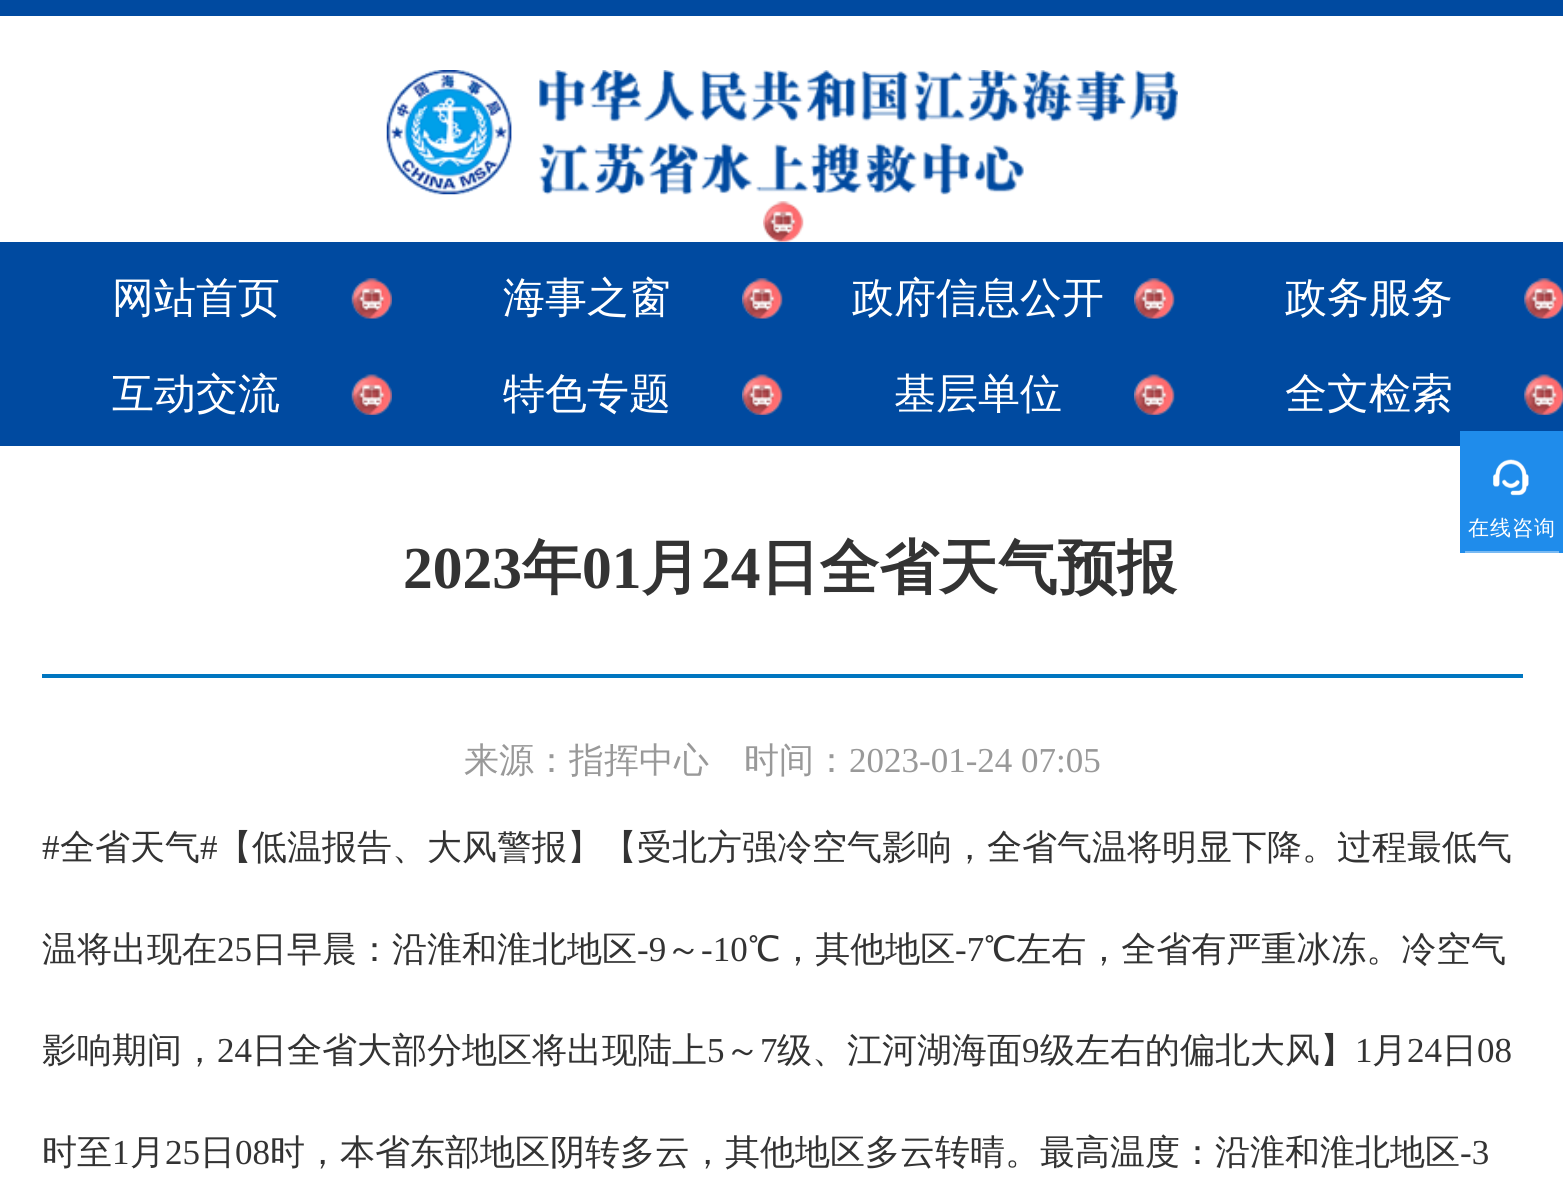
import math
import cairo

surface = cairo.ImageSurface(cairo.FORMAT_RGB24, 1563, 1195)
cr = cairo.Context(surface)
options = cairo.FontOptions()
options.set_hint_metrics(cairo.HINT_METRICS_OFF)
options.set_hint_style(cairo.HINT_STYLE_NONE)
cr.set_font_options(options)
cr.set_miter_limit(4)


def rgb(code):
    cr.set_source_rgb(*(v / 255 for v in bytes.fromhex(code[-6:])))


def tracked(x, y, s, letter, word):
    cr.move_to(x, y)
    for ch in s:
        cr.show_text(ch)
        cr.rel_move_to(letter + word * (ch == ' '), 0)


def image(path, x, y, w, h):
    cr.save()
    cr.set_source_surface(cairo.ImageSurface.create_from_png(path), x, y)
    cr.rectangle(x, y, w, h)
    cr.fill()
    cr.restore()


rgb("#004aa0")
cr.paint()
rgb("#ffffff")
cr.rectangle(0, 16, 1563, 226)
cr.fill()
image("img/1.png", 763, 201, 41, 41)
image("img/2.png", 386, 70, 792, 125)
image("img/3.png", 351, 278, 41, 41)
image("img/4.png", 742, 278, 41, 41)
image("img/5.png", 1134, 278, 41, 41)
image("img/6.png", 1524, 278, 39, 41)
image("img/7.png", 351, 374, 41, 41)
image("img/8.png", 742, 374, 41, 41)
image("img/9.png", 1134, 374, 41, 41)
image("img/10.png", 1524, 374, 39, 41)
for x, y, w, h, color in [
    (0, 446, 1563, 749, "#ffffff"),
    (42, 674, 1481, 4, "#0076c0"),
    (1460, 431, 103, 122, "#1f8ceb"),
]:
    rgb(color)
    cr.rectangle(x, y, w, h)
    cr.fill()
image("img/11.png", 1493, 459, 36, 37)
rgb("#79baf3")
cr.rectangle(1465, 551, 94, 2)
cr.fill()
cr.select_font_face("WenQuanYi Zen Hei Medium")
cr.set_font_size(42)
rgb("#ffffff")
for x, y, s in [
    (112, 312, "网站首页"),
    (503, 312, "海事之窗"),
    (852, 312, "政府信息公开"),
    (1285, 312, "政务服务"),
    (112, 408, "互动交流"),
    (503, 408, "特色专题"),
    (894, 408, "基层单位"),
    (1285, 408, "全文检索"),
]:
    cr.move_to(x, y)
    cr.show_text(s)
cr.select_font_face("Liberation Serif", cairo.FONT_SLANT_NORMAL, cairo.FONT_WEIGHT_BOLD)
cr.set_font_size(59.5)
rgb("#333333")
cr.move_to(403, 588)
cr.show_text("2023")
cr.select_font_face("WenQuanYi Zen Hei", cairo.FONT_SLANT_NORMAL, cairo.FONT_WEIGHT_BOLD)
cr.move_to(522, 588)
cr.show_text("年")
cr.select_font_face("Liberation Serif", cairo.FONT_SLANT_NORMAL, cairo.FONT_WEIGHT_BOLD)
cr.move_to(582, 588)
cr.show_text("01")
cr.select_font_face("WenQuanYi Zen Hei", cairo.FONT_SLANT_NORMAL, cairo.FONT_WEIGHT_BOLD)
cr.move_to(641, 588)
cr.show_text("月")
cr.select_font_face("Liberation Serif", cairo.FONT_SLANT_NORMAL, cairo.FONT_WEIGHT_BOLD)
cr.move_to(701, 588)
cr.show_text("24")
cr.select_font_face("WenQuanYi Zen Hei", cairo.FONT_SLANT_NORMAL, cairo.FONT_WEIGHT_BOLD)
cr.move_to(760, 588)
cr.show_text("日全省天气预报")
cr.select_font_face("WenQuanYi Zen Hei Medium")
cr.set_font_size(35)
rgb("#999999")
cr.move_to(464, 772)
cr.show_text("来源：指挥中心")
cr.move_to(744, 772)
cr.show_text("时间：")
cr.select_font_face("Liberation Serif")
cr.move_to(849, 772)
cr.show_text("2023-01-24 07:05")
rgb("#333333")
cr.move_to(42, 859)
cr.show_text("#")
cr.select_font_face("WenQuanYi Zen Hei Medium")
cr.move_to(60, 859)
cr.show_text("全省天气")
cr.select_font_face("Liberation Serif")
cr.move_to(200, 859)
cr.show_text("#")
cr.select_font_face("WenQuanYi Zen Hei Medium")
cr.move_to(217, 859)
cr.show_text("【低温报告、大风警报】【受北方强冷空气影响，全省气温将明显下降。过程最低气")
cr.move_to(42, 961)
cr.show_text("温将出现在")
cr.select_font_face("Liberation Serif")
cr.move_to(217, 961)
cr.show_text("25")
cr.select_font_face("WenQuanYi Zen Hei Medium")
cr.move_to(252, 961)
cr.show_text("日早晨：沿淮和淮北地区")
cr.select_font_face("Liberation Serif")
cr.move_to(637, 961)
cr.show_text("-9")
cr.select_font_face("WenQuanYi Zen Hei Medium")
cr.move_to(666, 961)
cr.show_text("～")
cr.select_font_face("Liberation Serif")
cr.move_to(701, 961)
cr.show_text("-10")
cr.select_font_face("WenQuanYi Zen Hei Medium")
cr.move_to(748, 961)
cr.show_text("℃，其他地区")
cr.select_font_face("Liberation Serif")
cr.move_to(955, 961)
cr.show_text("-7")
cr.select_font_face("WenQuanYi Zen Hei Medium")
cr.move_to(984, 961)
cr.show_text("℃左右，全省有严重冰冻。冷空气")
cr.move_to(42, 1062)
cr.show_text("影响期间，")
cr.select_font_face("Liberation Serif")
cr.move_to(217, 1062)
cr.show_text("24")
cr.select_font_face("WenQuanYi Zen Hei Medium")
cr.move_to(252, 1062)
cr.show_text("日全省大部分地区将出现陆上")
cr.select_font_face("Liberation Serif")
cr.move_to(707, 1062)
cr.show_text("5")
cr.select_font_face("WenQuanYi Zen Hei Medium")
cr.move_to(725, 1062)
cr.show_text("～")
cr.select_font_face("Liberation Serif")
cr.move_to(760, 1062)
cr.show_text("7")
cr.select_font_face("WenQuanYi Zen Hei Medium")
cr.move_to(777, 1062)
cr.show_text("级、江河湖海面")
cr.select_font_face("Liberation Serif")
cr.move_to(1022, 1062)
cr.show_text("9")
cr.select_font_face("WenQuanYi Zen Hei Medium")
cr.move_to(1040, 1062)
cr.show_text("级左右的偏北大风】")
cr.select_font_face("Liberation Serif")
cr.move_to(1355, 1062)
cr.show_text("1")
cr.select_font_face("WenQuanYi Zen Hei Medium")
cr.move_to(1372, 1062)
cr.show_text("月")
cr.select_font_face("Liberation Serif")
cr.move_to(1407, 1062)
cr.show_text("24")
cr.select_font_face("WenQuanYi Zen Hei Medium")
cr.move_to(1442, 1062)
cr.show_text("日")
cr.select_font_face("Liberation Serif")
cr.move_to(1477, 1062)
cr.show_text("08")
cr.select_font_face("WenQuanYi Zen Hei Medium")
cr.move_to(42, 1164)
cr.show_text("时至")
cr.select_font_face("Liberation Serif")
cr.move_to(112, 1164)
cr.show_text("1")
cr.select_font_face("WenQuanYi Zen Hei Medium")
cr.move_to(130, 1164)
cr.show_text("月")
cr.select_font_face("Liberation Serif")
cr.move_to(165, 1164)
cr.show_text("25")
cr.select_font_face("WenQuanYi Zen Hei Medium")
cr.move_to(200, 1164)
cr.show_text("日")
cr.select_font_face("Liberation Serif")
cr.move_to(235, 1164)
cr.show_text("08")
cr.select_font_face("WenQuanYi Zen Hei Medium")
cr.move_to(270, 1164)
cr.show_text("时，本省东部地区阴转多云，其他地区多云转晴。最高温度：沿淮和淮北地区")
cr.select_font_face("Liberation Serif")
cr.move_to(1460, 1164)
cr.show_text("-3")
cr.select_font_face("WenQuanYi Zen Hei Medium")
cr.set_font_size(21)
rgb("#ffffff")
tracked(1468, 535, "在线咨询", 1, 0)
surface.write_to_png("page.png")
